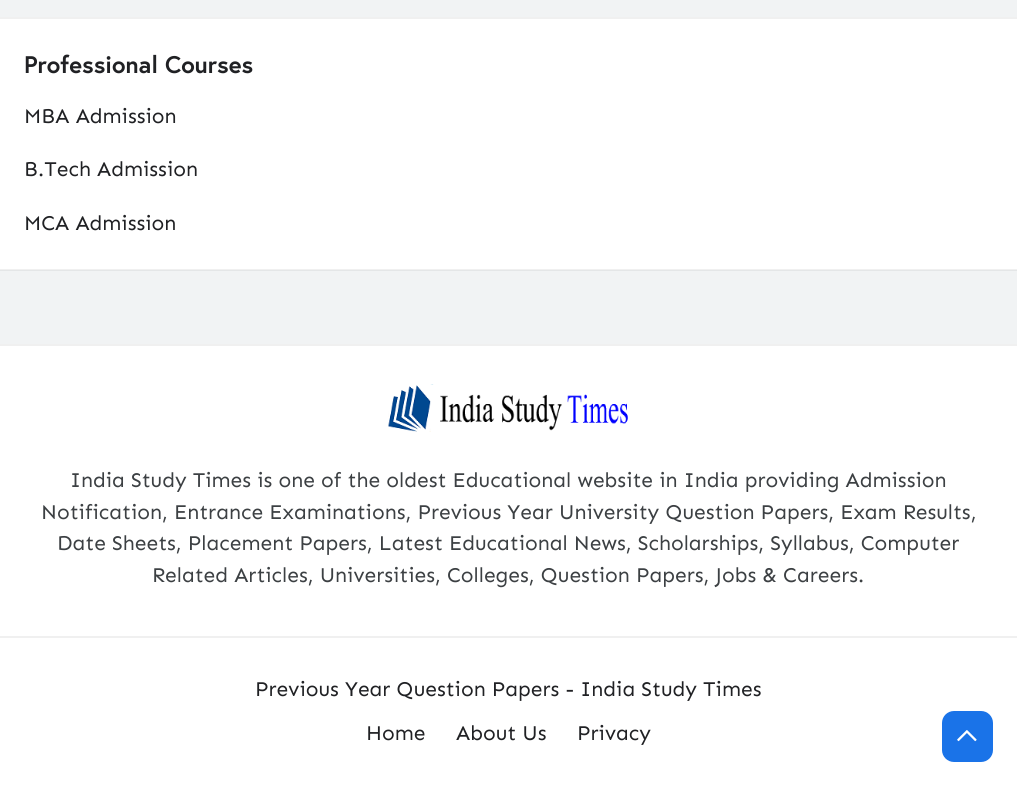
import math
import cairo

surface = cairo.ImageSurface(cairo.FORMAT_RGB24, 1017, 785)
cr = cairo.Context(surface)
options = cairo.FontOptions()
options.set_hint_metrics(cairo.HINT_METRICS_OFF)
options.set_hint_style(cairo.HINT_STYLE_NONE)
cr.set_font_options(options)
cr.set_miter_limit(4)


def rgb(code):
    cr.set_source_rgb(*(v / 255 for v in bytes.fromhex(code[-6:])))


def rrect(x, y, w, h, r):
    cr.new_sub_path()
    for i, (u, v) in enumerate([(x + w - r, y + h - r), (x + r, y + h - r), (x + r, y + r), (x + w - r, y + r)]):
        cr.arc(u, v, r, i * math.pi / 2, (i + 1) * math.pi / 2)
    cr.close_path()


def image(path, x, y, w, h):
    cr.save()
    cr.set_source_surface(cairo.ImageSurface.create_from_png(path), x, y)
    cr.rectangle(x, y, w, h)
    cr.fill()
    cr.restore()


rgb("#f1f3f4")
cr.paint()
for x, y, w, h, color in [
    (0, 270, 1017, 1, "#e4e6e7"),
    (0, 19, 1017, 250, "#ffffff"),
    (0, 269, 1017, 1, "#f0f0f0"),
    (0, 17, 1017, 2, "#f0f0f0"),
    (0, 346, 1017, 439, "#ffffff"),
    (0, 344, 1017, 2, "#f0f0f0"),
]:
    rgb(color)
    cr.rectangle(x, y, w, h)
    cr.fill()
image("img/1.png", 388, 384, 240, 48)
cr.rectangle(0, 636, 1017, 2)
cr.fill()
rgb("#1a73e8")
rrect(942, 711, 51, 51, 12)
cr.fill()
image("img/2.png", 957, 730, 20, 12)
cr.select_font_face("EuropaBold", cairo.FONT_SLANT_NORMAL, cairo.FONT_WEIGHT_BOLD)
cr.set_font_size(24)
rgb("#202124")
cr.move_to(24, 73)
cr.show_text("Professional Courses")
cr.select_font_face("Sen")
cr.set_font_size(21)
for x, y, s in [
    (24, 123, "MBA Admission"),
    (24, 176, "B.Tech Admission"),
    (24, 230, "MCA Admission"),
]:
    cr.move_to(x, y)
    cr.show_text(s)
rgb("#3c4043")
for x, y, s in [
    (70, 487, "India Study Times is one of the oldest Educational website in India providing Admission"),
    (41, 519, "Notification, Entrance Examinations, Previous Year University Question Papers, Exam Results,"),
    (57, 550, "Date Sheets, Placement Papers, Latest Educational News, Scholarships, Syllabus, Computer"),
    (152, 582, "Related Articles, Universities, Colleges, Question Papers, Jobs & Careers."),
]:
    cr.move_to(x, y)
    cr.show_text(s)
rgb("#202124")
for x, y, s in [
    (255, 696, "Previous Year Question Papers - India Study Times"),
    (366, 740, "Home"),
    (456, 740, "About Us"),
    (577, 740, "Privacy"),
]:
    cr.move_to(x, y)
    cr.show_text(s)
surface.write_to_png("page.png")
